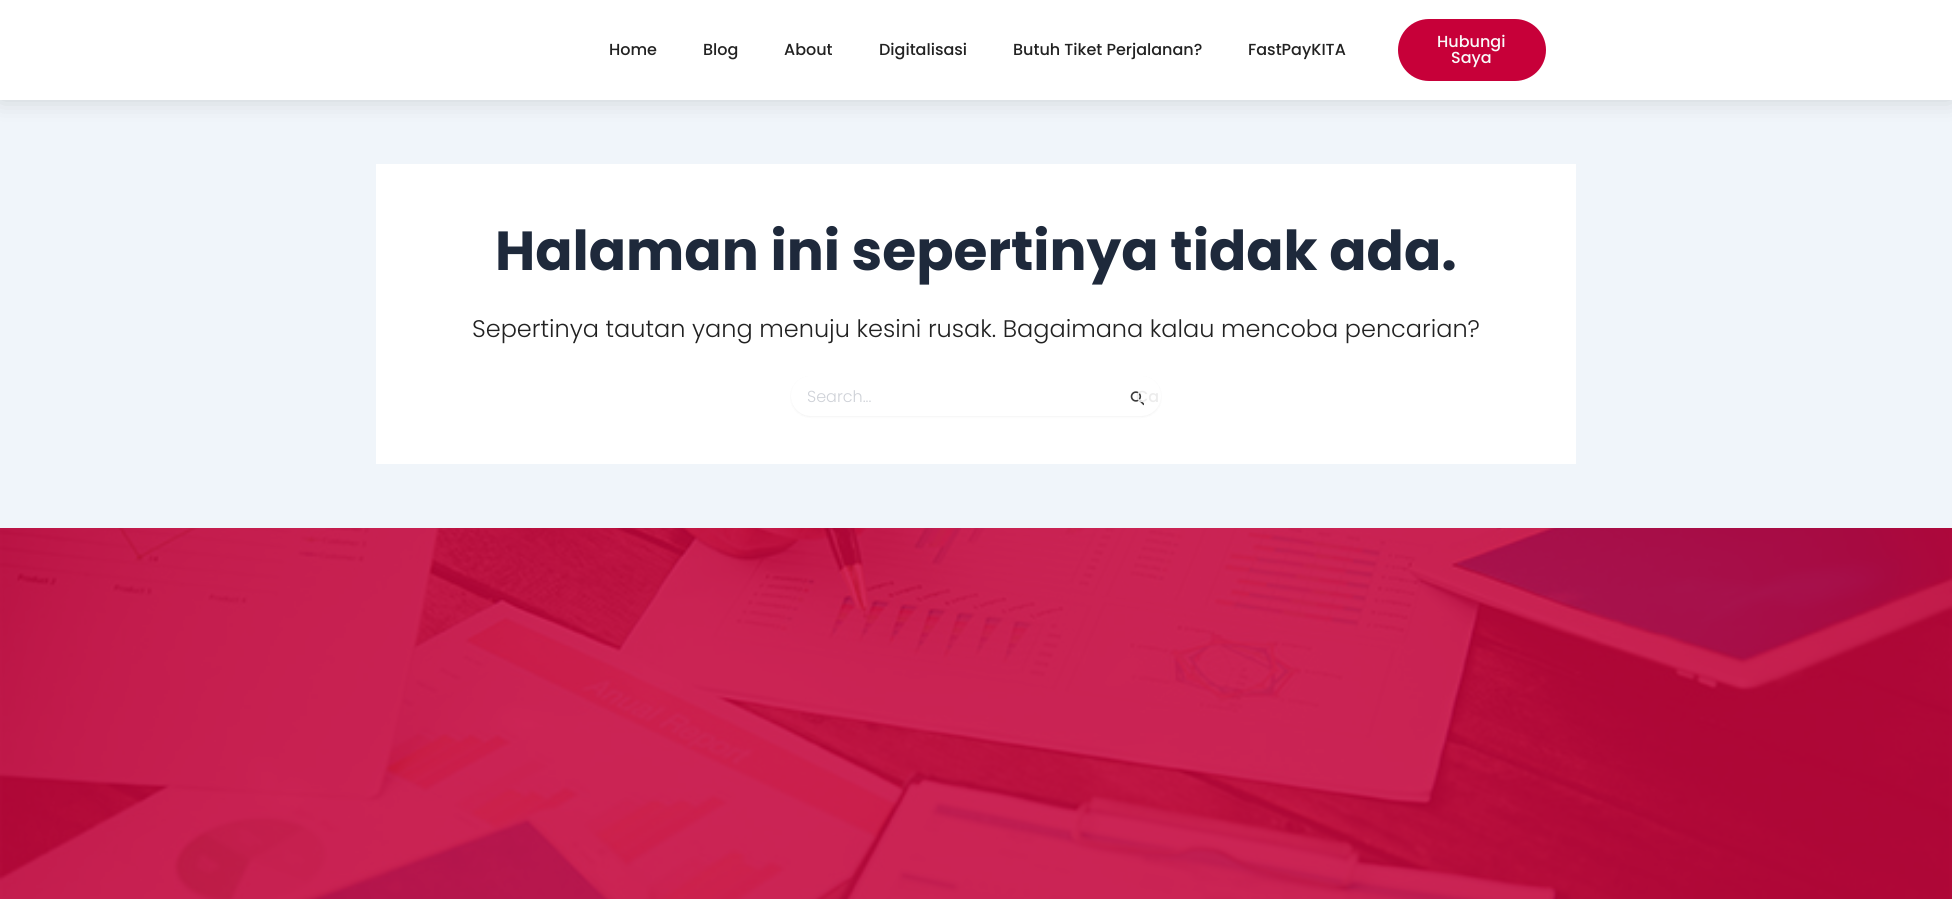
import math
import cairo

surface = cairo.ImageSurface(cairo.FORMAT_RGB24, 1952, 899)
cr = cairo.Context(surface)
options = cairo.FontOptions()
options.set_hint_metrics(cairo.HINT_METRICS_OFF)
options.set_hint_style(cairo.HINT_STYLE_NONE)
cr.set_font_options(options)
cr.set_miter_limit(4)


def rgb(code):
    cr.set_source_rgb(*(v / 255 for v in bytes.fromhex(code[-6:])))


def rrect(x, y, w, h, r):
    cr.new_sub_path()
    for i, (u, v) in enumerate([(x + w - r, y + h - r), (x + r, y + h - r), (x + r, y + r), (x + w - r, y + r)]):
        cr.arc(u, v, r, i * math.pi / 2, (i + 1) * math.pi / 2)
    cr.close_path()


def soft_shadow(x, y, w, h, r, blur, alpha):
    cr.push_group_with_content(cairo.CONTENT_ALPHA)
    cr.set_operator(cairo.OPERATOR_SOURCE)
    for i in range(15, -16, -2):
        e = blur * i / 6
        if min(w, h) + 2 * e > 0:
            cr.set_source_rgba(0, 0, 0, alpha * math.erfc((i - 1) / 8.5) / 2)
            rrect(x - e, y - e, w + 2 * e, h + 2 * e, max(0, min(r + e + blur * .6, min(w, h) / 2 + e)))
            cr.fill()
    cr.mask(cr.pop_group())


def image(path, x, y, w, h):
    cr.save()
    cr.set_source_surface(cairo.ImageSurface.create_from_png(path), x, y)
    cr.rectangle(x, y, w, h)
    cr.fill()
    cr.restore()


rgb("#f0f5fa")
cr.paint()
rgb("#000000")
soft_shadow(0, 0, 1952, 100, 0, 12, 0.15)
rgb("#ffffff")
cr.rectangle(0, 0, 1952, 100)
cr.fill()
rgb("#c70039")
rrect(1398, 19, 148, 62, 31)
cr.fill()
rgb("#ffffff")
cr.rectangle(376, 164, 1200, 300)
cr.fill()
rgb("#000000")
soft_shadow(791, 377, 370, 40, 20, 1, 0.05)
rgb("#ffffff")
rrect(791, 376, 370, 40, 20)
cr.fill()
image("img/1.png", 1130, 391, 14, 15)
image("img/2.png", 0, 528, 1952, 371)
cr.select_font_face("Poppins Medium")
cr.set_font_size(16)
rgb("#222222")
for x, y, s in [
    (609, 55, "Home"),
    (703, 55, "Blog"),
    (784, 55, "About"),
    (879, 55, "Digitalisasi"),
    (1013, 55, "Butuh Tiket Perjalanan?"),
    (1248, 55, "FastPayKITA"),
]:
    cr.move_to(x, y)
    cr.show_text(s)
rgb("#f9f9f9")
cr.move_to(1437, 47)
cr.show_text("Hubungi")
cr.move_to(1451, 63)
cr.show_text("Saya")
cr.select_font_face("Poppins", cairo.FONT_SLANT_NORMAL, cairo.FONT_WEIGHT_BOLD)
cr.set_font_size(55)
rgb("#1e293b")
cr.move_to(495, 270)
cr.show_text("Halaman ini sepertinya tidak ada.")
cr.select_font_face("Poppins Light")
cr.set_font_size(24)
rgb("#222222")
cr.move_to(472, 337)
cr.show_text("Sepertinya tautan yang menuju kesini rusak. Bagaimana kalau mencoba pencarian?")
cr.set_font_size(16)
rgb("#ced1d7")
cr.move_to(807, 402)
cr.show_text("Search...")
cr.select_font_face("Poppins Medium")
rgb("#ececec")
cr.move_to(1136, 402)
cr.show_text("Ca")
surface.write_to_png("page.png")
